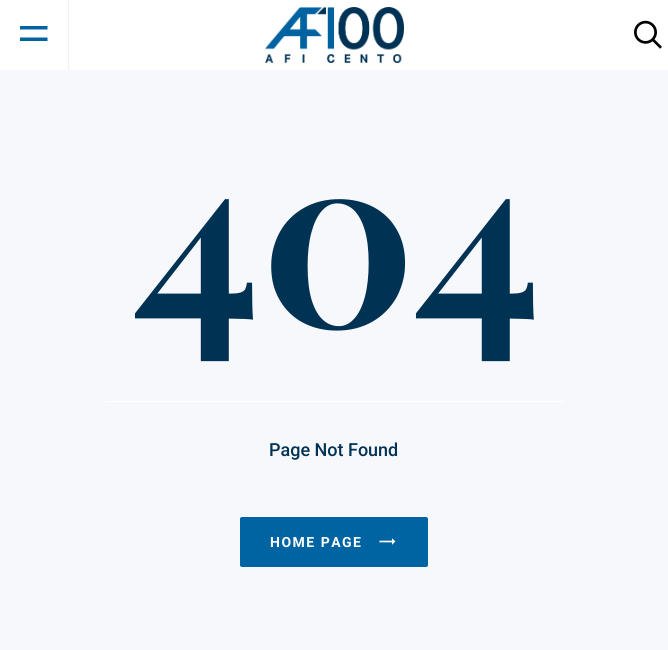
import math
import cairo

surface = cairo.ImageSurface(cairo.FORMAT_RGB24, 668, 650)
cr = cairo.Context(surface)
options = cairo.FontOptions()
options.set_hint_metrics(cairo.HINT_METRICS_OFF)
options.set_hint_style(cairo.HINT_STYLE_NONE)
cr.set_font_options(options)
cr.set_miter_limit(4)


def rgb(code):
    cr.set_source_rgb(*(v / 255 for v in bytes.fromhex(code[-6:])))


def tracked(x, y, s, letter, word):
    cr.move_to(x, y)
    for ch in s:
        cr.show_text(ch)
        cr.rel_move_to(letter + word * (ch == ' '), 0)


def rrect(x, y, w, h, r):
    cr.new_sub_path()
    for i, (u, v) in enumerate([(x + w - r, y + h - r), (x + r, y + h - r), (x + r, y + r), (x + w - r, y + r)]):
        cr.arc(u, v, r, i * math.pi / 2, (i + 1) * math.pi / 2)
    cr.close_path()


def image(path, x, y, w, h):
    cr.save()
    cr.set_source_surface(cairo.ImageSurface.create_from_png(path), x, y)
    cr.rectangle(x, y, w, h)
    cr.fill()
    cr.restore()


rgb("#f7f8fb")
cr.paint()
rgb("#ffffff")
cr.rectangle(0, 0, 668, 70)
cr.fill()
rgb("#f0f1f2")
cr.rectangle(68, 0, 1, 70)
cr.fill()
rgb("#0063a2")
cr.new_path()
cr.move_to(20, 41)
cr.line_to(20, 37.5)
cr.line_to(47.5, 37.5)
cr.line_to(47.5, 41)
cr.close_path()
cr.move_to(20, 26)
cr.line_to(47.5, 26)
cr.line_to(47.5, 29.5)
cr.line_to(20, 29.5)
cr.close_path()
cr.fill()
image("img/1.png", 265, 7, 139, 56)
image("img/2.png", 634, 20, 28, 29)
rgb("#ffffff")
cr.rectangle(105, 401, 458, 1)
cr.fill()
image("img/3.png", 135, 199, 399, 163)
rgb("#0063a2")
rrect(240, 517, 188, 50, 2)
cr.fill()
image("img/4.png", 379, 538, 17, 7)
cr.select_font_face("Roboto Medium")
cr.set_font_size(18)
rgb("#003254")
cr.move_to(269, 456)
cr.show_text("Page Not Found")
cr.select_font_face("Roboto", cairo.FONT_SLANT_NORMAL, cairo.FONT_WEIGHT_BOLD)
cr.set_font_size(14)
rgb("#ffffff")
tracked(270, 547, "HOME PAGE", 1.5, 0)
surface.write_to_png("page.png")
